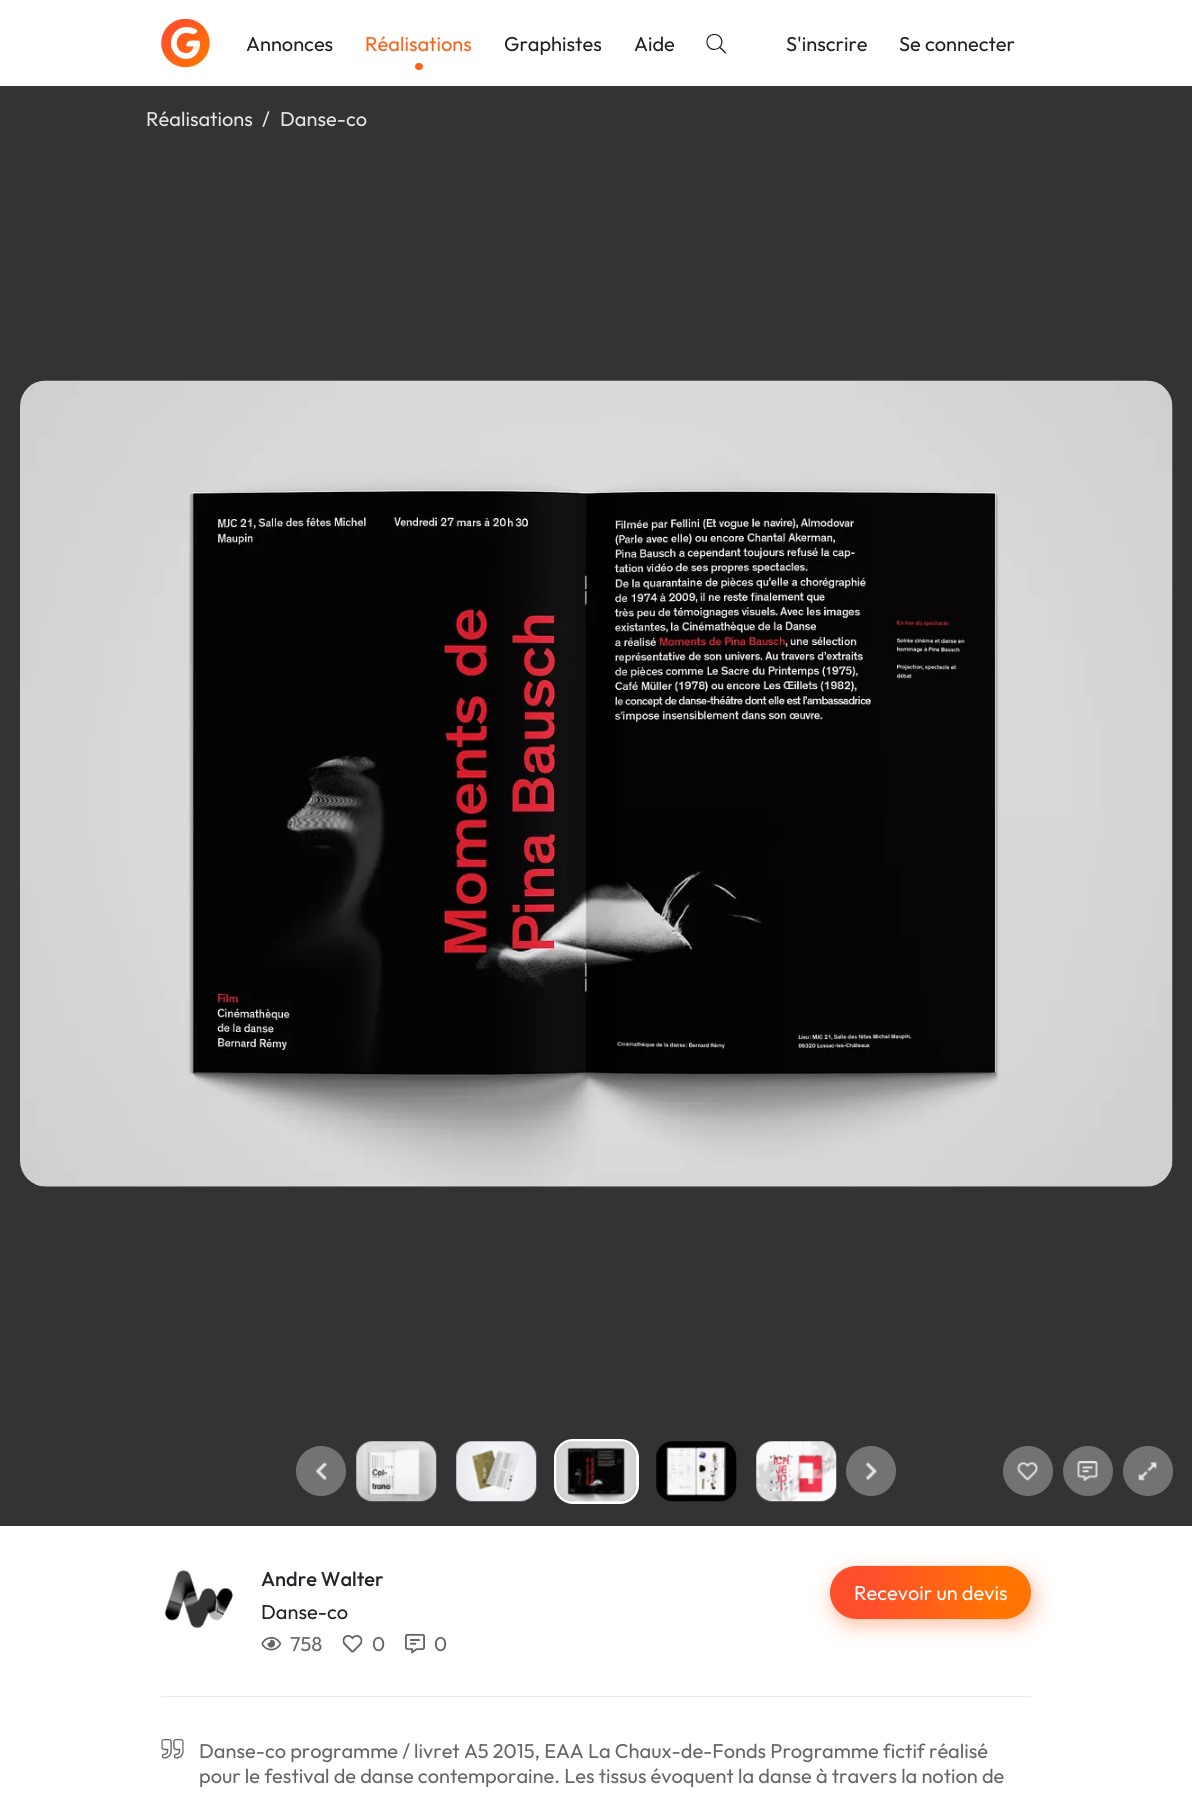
import math
import cairo

surface = cairo.ImageSurface(cairo.FORMAT_RGB24, 1192, 1799)
cr = cairo.Context(surface)
options = cairo.FontOptions()
options.set_hint_metrics(cairo.HINT_METRICS_OFF)
options.set_hint_style(cairo.HINT_STYLE_NONE)
cr.set_font_options(options)
cr.set_miter_limit(4)


def rgb(code):
    cr.set_source_rgb(*(v / 255 for v in bytes.fromhex(code[-6:])))


def rrect(x, y, w, h, r):
    cr.new_sub_path()
    for i, (u, v) in enumerate([(x + w - r, y + h - r), (x + r, y + h - r), (x + r, y + r), (x + w - r, y + r)]):
        cr.arc(u, v, r, i * math.pi / 2, (i + 1) * math.pi / 2)
    cr.close_path()


def soft_shadow(x, y, w, h, r, blur, alpha):
    cr.push_group_with_content(cairo.CONTENT_ALPHA)
    cr.set_operator(cairo.OPERATOR_SOURCE)
    for i in range(15, -16, -2):
        e = blur * i / 6
        if min(w, h) + 2 * e > 0:
            cr.set_source_rgba(0, 0, 0, alpha * math.erfc((i - 1) / 8.5) / 2)
            rrect(x - e, y - e, w + 2 * e, h + 2 * e, max(0, min(r + e + blur * .6, min(w, h) / 2 + e)))
            cr.fill()
    cr.mask(cr.pop_group())


def image(path, x, y, w, h):
    cr.save()
    cr.set_source_surface(cairo.ImageSurface.create_from_png(path), x, y)
    cr.rectangle(x, y, w, h)
    cr.fill()
    cr.restore()


rgb("#ffffff")
cr.paint()
rgb("#333333")
cr.rectangle(0, 86, 1192, 1440)
cr.fill()
image("img/1.png", 161, 19, 49, 49)
rgb("#ff6018")
rrect(415, 63, 8, 7, 3.5)
cr.fill()
image("img/2.png", 706, 33, 21, 21)
image("img/3.png", 20, 380, 1153, 807)
rgb("#737373")
cr.arc(321, 1471, 25, 0, 2 * math.pi)
cr.fill()
image("img/4.png", 316, 1462, 11, 19)
image("img/5.png", 356, 1441, 81, 61)
image("img/6.png", 456, 1441, 81, 61)
rrect(555.5, 1440.5, 82, 62, 17.5)
rgb("#ffffff")
cr.set_line_width(3)
cr.stroke()
image("img/7.png", 556, 1441, 81, 61)
image("img/8.png", 656, 1441, 81, 61)
image("img/9.png", 756, 1441, 81, 61)
rgb("#737373")
cr.arc(871, 1471, 25, 0, 2 * math.pi)
cr.fill()
image("img/10.png", 866, 1462, 11, 19)
cr.arc(1028, 1471, 25, 0, 2 * math.pi)
cr.fill()
image("img/11.png", 1017, 1462, 21, 19)
cr.arc(1088, 1471, 25, 0, 2 * math.pi)
cr.fill()
image("img/12.png", 1077, 1461, 21, 20)
cr.arc(1148, 1471, 25, 0, 2 * math.pi)
cr.fill()
image("img/13.png", 1138, 1462, 19, 19)
image("img/14.png", 164, 1570, 69, 58)
image("img/15.png", 261, 1637, 21, 14)
image("img/16.png", 342, 1635, 21, 18)
image("img/17.png", 405, 1633, 20, 21)
rgb("#ff6018")
soft_shadow(833, 1573, 201, 52, 26, 10, 0.4)
gradient = cairo.LinearGradient(826, 1593, 1035, 1593)
gradient.add_color_stop_rgba(0, 1, 0.306, 0.173, 1)
gradient.add_color_stop_rgba(0.2, 1, 0.306, 0.173, 1)
gradient.add_color_stop_rgba(0.8, 1, 0.455, 0.012, 1)
gradient.add_color_stop_rgba(1, 1, 0.455, 0.012, 1)
cr.set_source(gradient)
rrect(830, 1566, 201, 53, 26.5)
cr.fill()
rgb("#ebebeb")
cr.rectangle(161, 1696, 870, 1)
cr.fill()
image("img/18.png", 161, 1739, 23, 20)
cr.select_font_face("Outfit")
cr.set_font_size(20)
rgb("#212121")
cr.move_to(246, 51)
cr.show_text("Annonces")
rgb("#ff6018")
cr.move_to(365, 51)
cr.show_text("Réalisations")
rgb("#212121")
for x, y, s in [
    (504, 51, "Graphistes"),
    (634, 51, "Aide"),
    (786, 51, "S'inscrire"),
    (899, 51, "Se connecter"),
]:
    cr.move_to(x, y)
    cr.show_text(s)
rgb("#e5e5e5")
for x, y, s in [
    (146, 126, "Réalisations"),
    (262, 126, "/"),
    (280, 126, "Danse-co"),
]:
    cr.move_to(x, y)
    cr.show_text(s)
cr.select_font_face("Outfit Medium")
rgb("#212529")
cr.move_to(261, 1586)
cr.show_text("Andre Walter")
cr.select_font_face("Outfit")
rgb("#212121")
cr.move_to(261, 1619)
cr.show_text("Danse-co")
rgb("#666666")
for x, y, s in [
    (290, 1651, "758"),
    (372, 1651, "0"),
    (434, 1651, "0"),
]:
    cr.move_to(x, y)
    cr.show_text(s)
rgb("#ffffff")
cr.move_to(854, 1600)
cr.show_text("Recevoir un devis")
rgb("#666666")
cr.move_to(199, 1758)
cr.show_text("Danse-co programme / livret A5 2015, EAA La Chaux-de-Fonds Programme fictif réalisé")
cr.move_to(199, 1783)
cr.show_text("pour le festival de danse contemporaine. Les tissus évoquent la danse à travers la notion de")
surface.write_to_png("page.png")
